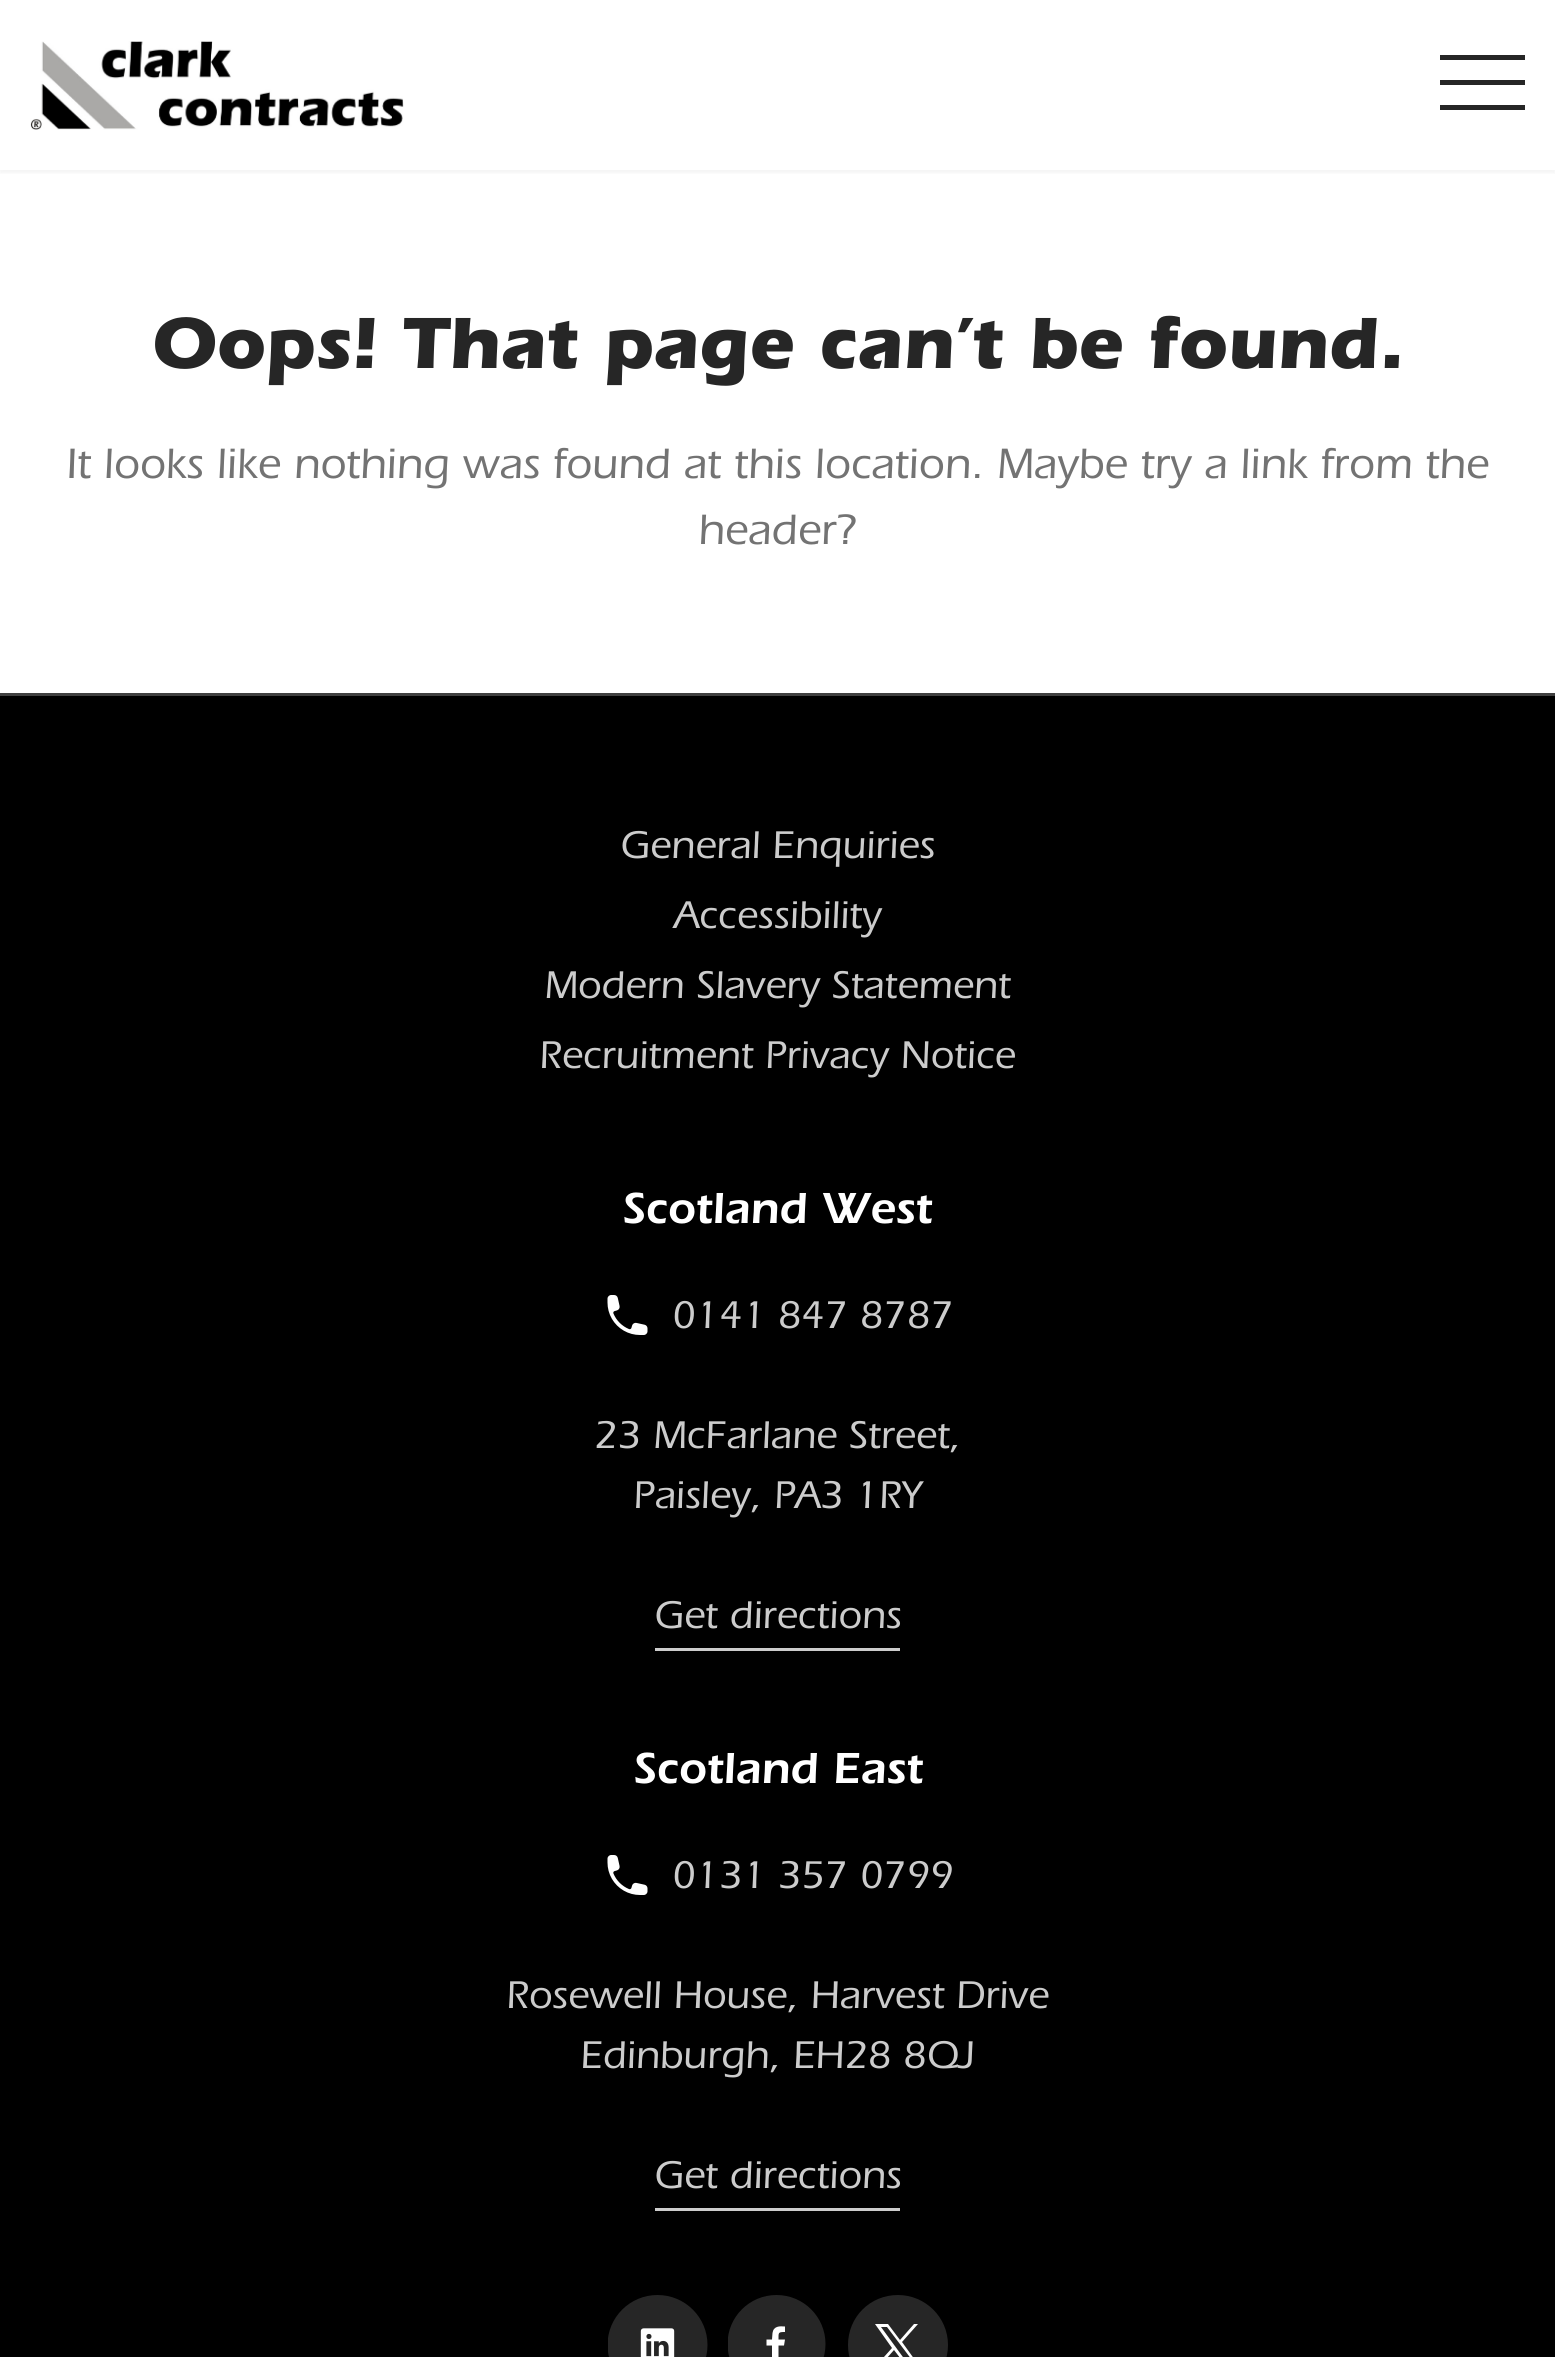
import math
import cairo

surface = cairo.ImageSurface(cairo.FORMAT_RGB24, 1555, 2357)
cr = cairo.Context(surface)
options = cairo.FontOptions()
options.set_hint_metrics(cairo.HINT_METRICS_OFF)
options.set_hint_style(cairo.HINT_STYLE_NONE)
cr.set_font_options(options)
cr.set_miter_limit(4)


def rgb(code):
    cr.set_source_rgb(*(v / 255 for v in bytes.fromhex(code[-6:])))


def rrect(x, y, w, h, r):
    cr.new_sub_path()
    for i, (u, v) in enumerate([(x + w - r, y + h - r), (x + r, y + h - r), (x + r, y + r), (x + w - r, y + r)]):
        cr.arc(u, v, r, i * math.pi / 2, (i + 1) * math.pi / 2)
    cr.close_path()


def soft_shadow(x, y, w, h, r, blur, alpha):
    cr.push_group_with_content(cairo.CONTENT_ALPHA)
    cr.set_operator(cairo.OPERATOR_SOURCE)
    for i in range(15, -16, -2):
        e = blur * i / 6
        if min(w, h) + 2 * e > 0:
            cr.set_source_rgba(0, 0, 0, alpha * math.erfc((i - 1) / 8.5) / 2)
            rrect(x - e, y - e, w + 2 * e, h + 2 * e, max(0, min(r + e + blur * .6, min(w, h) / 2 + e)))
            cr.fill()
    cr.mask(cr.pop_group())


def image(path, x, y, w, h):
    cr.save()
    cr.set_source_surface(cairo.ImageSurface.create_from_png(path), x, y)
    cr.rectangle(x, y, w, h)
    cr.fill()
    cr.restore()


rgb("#ffffff")
cr.paint()
cr.save()
cr.rectangle(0, 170, 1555, 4)
cr.clip()
rgb("#000000")
soft_shadow(0, 3, 1555, 170, 0, 2.5, 0.05)
cr.restore()
image("img/1.png", 30, 41, 374, 89)
for x, y, w, h, color in [
    (1440, 55, 85, 5, "#262626"),
    (1440, 80, 85, 5, "#262626"),
    (1440, 105, 85, 5, "#262626"),
    (0, 696, 1555, 1661, "#000000"),
    (0, 693, 1555, 3, "#404040"),
]:
    rgb(color)
    cr.rectangle(x, y, w, h)
    cr.fill()
image("img/2.png", 607, 1295, 41, 40)
rgb("#cccccc")
cr.rectangle(655, 1648, 245, 3)
cr.fill()
image("img/2.png", 607, 1855, 41, 40)
cr.rectangle(655, 2208, 245, 3)
cr.fill()
image("img/3.png", 608, 2295, 100, 62)
cr.save()
cr.rectangle(728, 2295, 100, 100)
cr.clip()
rgb("#262626")
cr.arc(776.5, 2344, 49, 0, 2 * math.pi)
cr.fill()
cr.restore()
rgb("#ffffff")
cr.new_path()
cr.move_to(778.5, 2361.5)
cr.line_to(778.5, 2345.5)
cr.line_to(784, 2345.5)
cr.line_to(785, 2339.5)
cr.line_to(778.5, 2339.5)
cr.curve_to(778.5, 2332.5, 778, 2332, 785, 2332)
cr.line_to(785, 2326.5)
cr.curve_to(779.5, 2326, 773.5, 2326, 772.5, 2333)
cr.line_to(772, 2339.5)
cr.line_to(766.5, 2339.5)
cr.line_to(766.5, 2345.5)
cr.line_to(772, 2345.5)
cr.line_to(772, 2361.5)
cr.close_path()
cr.fill()
rgb("#262626")
cr.new_path()
cr.move_to(898, 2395)
cr.curve_to(925, 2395, 948, 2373, 948, 2345)
cr.curve_to(948, 2317, 925, 2295, 898, 2295)
cr.curve_to(870, 2295, 848, 2317, 848, 2345)
cr.curve_to(848, 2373, 870, 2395, 898, 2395)
cr.close_path()
cr.fill()
rgb("#ffffff")
cr.new_path()
cr.move_to(875, 2324)
cr.line_to(892, 2348)
cr.line_to(875, 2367)
cr.line_to(879, 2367)
cr.line_to(894, 2350)
cr.line_to(907, 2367)
cr.line_to(920, 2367)
cr.line_to(902, 2342)
cr.line_to(918, 2324)
cr.line_to(914, 2324)
cr.line_to(900, 2340)
cr.line_to(888, 2324)
cr.close_path()
cr.move_to(881, 2327)
cr.line_to(887, 2327)
cr.line_to(915, 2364)
cr.line_to(908, 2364)
cr.close_path()
cr.fill()
cr.select_font_face("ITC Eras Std", cairo.FONT_SLANT_NORMAL, cairo.FONT_WEIGHT_BOLD)
cr.set_font_size(75)
rgb("#262626")
cr.move_to(151, 368)
cr.show_text("Oops! That page can’t be found.")
cr.select_font_face("ITC Eras Std Medium")
cr.set_font_size(44)
rgb("#737373")
cr.move_to(66, 478)
cr.show_text("It looks like nothing was found at this location. Maybe try a link from the")
cr.move_to(698, 544)
cr.show_text("header?")
cr.set_font_size(40)
rgb("#cccccc")
for x, y, s in [
    (620, 858, "General Enquiries"),
    (674, 928, "Accessibility"),
    (544, 998, "Modern Slavery Statement"),
    (539, 1068, "Recruitment Privacy Notice"),
]:
    cr.move_to(x, y)
    cr.show_text(s)
cr.select_font_face("ITC Eras Std SemiBold")
cr.set_font_size(45)
rgb("#ffffff")
cr.move_to(622, 1223)
cr.show_text("Scotland West")
cr.select_font_face("ITC Eras Std Medium")
cr.set_font_size(40)
rgb("#cccccc")
for x, y, s in [
    (672, 1328, "0141 847 8787"),
    (594, 1448, "23 McFarlane Street,"),
    (633, 1508, "Paisley, PA3 1RY"),
    (654, 1628, "Get directions"),
]:
    cr.move_to(x, y)
    cr.show_text(s)
cr.select_font_face("ITC Eras Std SemiBold")
cr.set_font_size(45)
rgb("#ffffff")
cr.move_to(633, 1783)
cr.show_text("Scotland East")
cr.select_font_face("ITC Eras Std Medium")
cr.set_font_size(40)
rgb("#cccccc")
for x, y, s in [
    (672, 1888, "0131 357 0799"),
    (506, 2008, "Rosewell House, Harvest Drive"),
    (580, 2068, "Edinburgh, EH28 8QJ"),
    (654, 2188, "Get directions"),
]:
    cr.move_to(x, y)
    cr.show_text(s)
surface.write_to_png("page.png")
